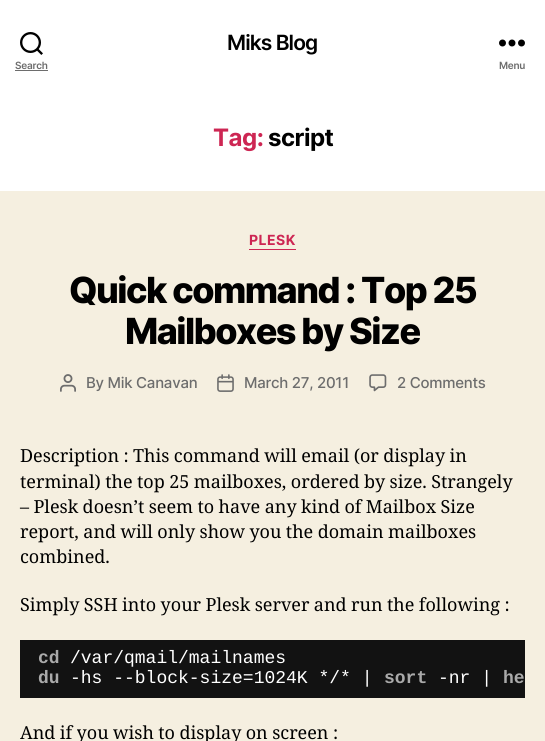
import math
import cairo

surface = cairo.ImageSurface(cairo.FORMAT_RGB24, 545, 741)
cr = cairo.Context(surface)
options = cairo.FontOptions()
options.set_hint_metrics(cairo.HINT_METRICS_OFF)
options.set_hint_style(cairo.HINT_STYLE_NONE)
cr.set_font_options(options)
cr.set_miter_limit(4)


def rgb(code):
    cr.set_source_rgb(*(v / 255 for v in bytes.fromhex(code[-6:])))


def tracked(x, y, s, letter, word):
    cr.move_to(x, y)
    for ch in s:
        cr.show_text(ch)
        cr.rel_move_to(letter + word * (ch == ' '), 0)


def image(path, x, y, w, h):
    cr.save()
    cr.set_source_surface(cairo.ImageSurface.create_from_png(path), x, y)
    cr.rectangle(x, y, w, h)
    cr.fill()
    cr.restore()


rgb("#f5efe0")
cr.paint()
rgb("#ffffff")
cr.rectangle(0, 0, 545, 191)
cr.fill()
image("img/1.png", 20, 32, 23, 23)
rgb("#6d6d6d")
cr.rectangle(15, 70, 33, 1)
cr.fill()
image("img/2.png", 499, 39, 26, 8)
rgb("#cd2653")
cr.rectangle(249, 249, 47, 1)
cr.fill()
image("img/3.png", 60, 374, 16, 18)
image("img/4.png", 217, 374, 17, 18)
image("img/5.png", 369, 374, 18, 18)
rgb("#121212")
cr.rectangle(20, 640, 505, 58)
cr.fill()
cr.select_font_face("Inter SemiBold")
cr.set_font_size(21)
rgb("#000000")
tracked(227, 50, "Miks Blog", -0.9, 0)
cr.set_font_size(10)
rgb("#6d6d6d")
tracked(15, 69, "Search", -0.25, 0)
tracked(499, 69, "Menu", -0.25, 0)
cr.select_font_face("Inter", cairo.FONT_SLANT_NORMAL, cairo.FONT_WEIGHT_BOLD)
cr.set_font_size(24)
rgb("#cd2653")
tracked(213, 146, "Tag:", -0.5, 0)
rgb("#000000")
tracked(268, 146, "script", -0.5, 0)
cr.set_font_size(14)
rgb("#cd2653")
tracked(249, 245, "PLESK", 0.5, 0)
cr.select_font_face("Inter ExtraBold")
cr.set_font_size(36)
rgb("#000000")
tracked(69, 303, "Quick command : Top 25", -1.5, 0)
tracked(125, 344, "Mailboxes by Size", -1.5, 0)
cr.select_font_face("Inter Medium")
cr.set_font_size(15)
rgb("#6d6d6d")
for x, y, s in [
    (86, 388, "By Mik Canavan"),
    (244, 388, "March 27, 2011"),
    (397, 388, "2 Comments"),
]:
    tracked(x, y, s, -0.25, 0)
cr.select_font_face("Noto Serif")
cr.set_font_size(18)
rgb("#000000")
for x, y, s in [
    (20, 462, "Description : This command will email (or display in"),
    (20, 488, "terminal) the top 25 mailboxes, ordered by size. Strangely"),
    (20, 513, "– Plesk doesn’t seem to have any kind of Mailbox Size"),
    (20, 538, "report, and will only show you the domain mailboxes"),
]:
    tracked(x, y, s, 0, -0.25)
cr.move_to(20, 563)
cr.show_text("combined.")
tracked(20, 611, "Simply SSH into your Plesk server and run the following :", 0, -0.25)
cr.select_font_face("Liberation Mono", cairo.FONT_SLANT_NORMAL, cairo.FONT_WEIGHT_BOLD)
rgb("#aaaaaa")
cr.move_to(38, 663)
cr.show_text("cd")
cr.select_font_face("Liberation Mono")
rgb("#ffffff")
cr.move_to(70, 663)
cr.show_text("/var/qmail/mailnames")
cr.select_font_face("Liberation Mono", cairo.FONT_SLANT_NORMAL, cairo.FONT_WEIGHT_BOLD)
rgb("#aaaaaa")
cr.move_to(38, 683)
cr.show_text("du")
cr.select_font_face("Liberation Mono")
rgb("#ffffff")
cr.move_to(70, 683)
cr.show_text("-hs --block-size=1024K */* |")
cr.select_font_face("Liberation Mono", cairo.FONT_SLANT_NORMAL, cairo.FONT_WEIGHT_BOLD)
rgb("#aaaaaa")
cr.move_to(384, 683)
cr.show_text("sort")
cr.select_font_face("Liberation Mono")
rgb("#ffffff")
cr.move_to(438, 683)
cr.show_text("-nr |")
cr.select_font_face("Liberation Mono", cairo.FONT_SLANT_NORMAL, cairo.FONT_WEIGHT_BOLD)
rgb("#aaaaaa")
cr.move_to(503, 683)
cr.show_text("he")
cr.select_font_face("Noto Serif")
rgb("#000000")
tracked(20, 739, "And if you wish to display on screen :", 0, -0.25)
surface.write_to_png("page.png")
